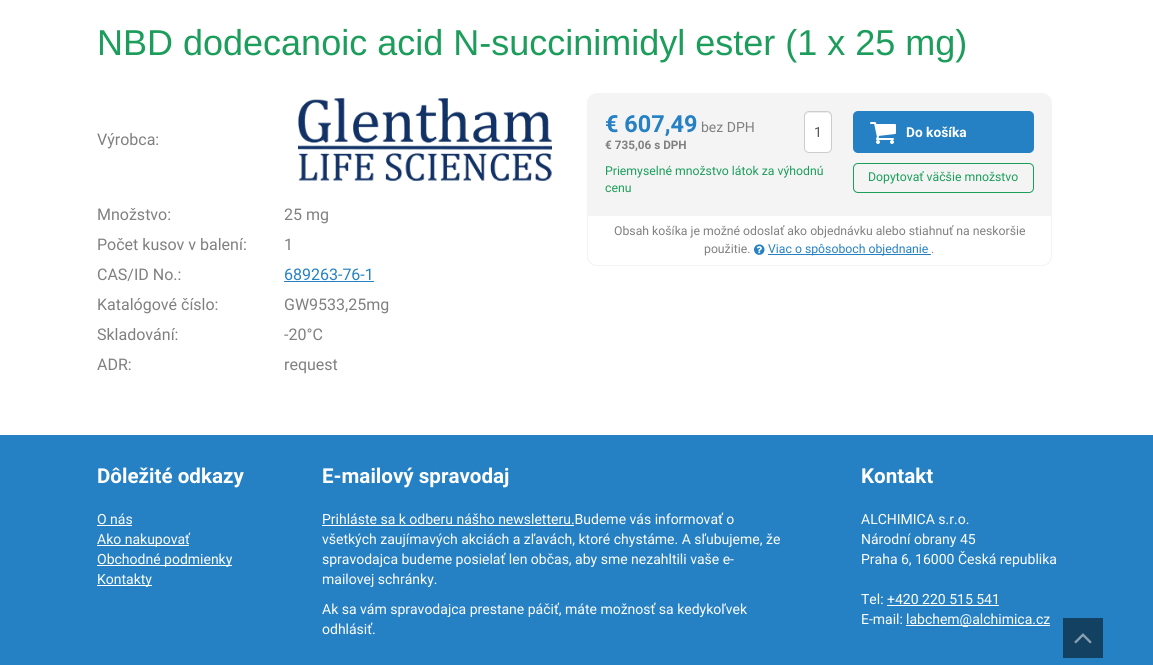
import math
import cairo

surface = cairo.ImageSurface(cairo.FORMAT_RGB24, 1153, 665)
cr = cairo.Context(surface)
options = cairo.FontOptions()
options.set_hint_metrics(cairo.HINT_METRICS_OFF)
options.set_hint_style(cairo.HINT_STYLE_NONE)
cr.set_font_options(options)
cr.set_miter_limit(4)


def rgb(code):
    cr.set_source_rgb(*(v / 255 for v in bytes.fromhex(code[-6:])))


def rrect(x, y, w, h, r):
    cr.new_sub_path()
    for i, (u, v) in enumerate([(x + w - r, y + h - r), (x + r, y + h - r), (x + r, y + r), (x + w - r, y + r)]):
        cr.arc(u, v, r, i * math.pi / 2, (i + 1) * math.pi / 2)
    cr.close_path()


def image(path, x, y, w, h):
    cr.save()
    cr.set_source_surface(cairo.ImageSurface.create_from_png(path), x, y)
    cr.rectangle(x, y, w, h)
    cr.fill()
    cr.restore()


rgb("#ffffff")
cr.paint()
image("img/1.png", 298, 98, 254, 83)
rgb("#2581c4")
cr.rectangle(284, 281, 90, 1)
cr.fill()
rgb("#f4f4f4")
rrect(587, 93, 465, 173, 10)
cr.fill()
rgb("#ffffff")
rrect(804, 111, 28, 42, 5)
cr.fill()
rgb("#ececec")
cr.new_path()
cr.move_to(809, 113)
cr.line_to(827, 113)
cr.curve_to(829, 113, 831, 115, 831, 117)
cr.curve_to(831, 112, 828, 112, 824, 112)
cr.line_to(812, 112)
cr.curve_to(808, 112, 805, 112, 805, 117)
cr.curve_to(805, 115, 807, 113, 809, 113)
cr.close_path()
cr.fill()
rrect(804.5, 111.5, 27, 41, 4.5)
rgb("#cccccc")
cr.set_line_width(1)
cr.stroke()
rgb("#2581c4")
rrect(853, 111, 181, 42, 5)
cr.fill()
image("img/2.png", 870, 122, 26, 22)
rrect(853.5, 163.5, 180, 29, 4.5)
rgb("#1c9d5b")
cr.stroke()
rgb("#ffffff")
cr.new_path()
cr.move_to(587.5, 215.5)
cr.line_to(1051.5, 215.5)
cr.line_to(1051.5, 256)
cr.curve_to(1051.5, 261, 1047, 265.5, 1042, 265.5)
cr.line_to(597, 265.5)
cr.curve_to(592, 265.5, 587.5, 261, 587.5, 256)
cr.close_path()
cr.fill_preserve()
rgb("#f4f4f4")
cr.stroke()
image("img/3.png", 754, 244, 11, 11)
for x, y, w, h, color in [
    (768, 254, 163, 1, "#2581c4"),
    (0, 435, 1153, 230, "#2581c4"),
    (97, 525, 35, 1, "#ffffff"),
    (97, 545, 92, 1, "#ffffff"),
    (97, 565, 135, 1, "#ffffff"),
    (97, 585, 55, 1, "#ffffff"),
    (322, 525, 252, 1, "#ffffff"),
    (887, 605, 112, 1, "#ffffff"),
    (906, 625, 144, 1, "#ffffff"),
    (1063, 618, 40, 40, "#134162"),
]:
    rgb(color)
    cr.rectangle(x, y, w, h)
    cr.fill()
image("img/4.png", 1074, 633, 18, 11)
cr.select_font_face("Liberation Sans")
cr.set_font_size(36)
rgb("#1c9d5b")
cr.move_to(97, 55)
cr.show_text("NBD dodecanoic acid N-succinimidyl ester (1 x 25 mg)")
cr.select_font_face("Roboto")
cr.set_font_size(16)
rgb("#808080")
for x, y, s in [
    (97, 145, "Výrobca:"),
    (97, 220, "Množstvo:"),
    (284, 220, "25 mg"),
    (97, 250, "Počet kusov v balení:"),
    (284, 250, "1"),
    (97, 280, "CAS/ID No.:"),
]:
    cr.move_to(x, y)
    cr.show_text(s)
rgb("#2581c4")
cr.move_to(284, 280)
cr.show_text("689263-76-1")
rgb("#808080")
for x, y, s in [
    (97, 310, "Katalógové číslo:"),
    (284, 310, "GW9533,25mg"),
    (97, 340, "Skladování:"),
    (284, 340, "-20°C"),
    (97, 370, "ADR:"),
    (284, 370, "request"),
]:
    cr.move_to(x, y)
    cr.show_text(s)
cr.select_font_face("Roboto", cairo.FONT_SLANT_NORMAL, cairo.FONT_WEIGHT_BOLD)
cr.set_font_size(24)
rgb("#2581c4")
cr.move_to(605, 132)
cr.show_text("€ 607,49")
cr.select_font_face("Roboto")
cr.set_font_size(14)
rgb("#808080")
cr.move_to(701, 132)
cr.show_text("bez DPH")
cr.select_font_face("Roboto", cairo.FONT_SLANT_NORMAL, cairo.FONT_WEIGHT_BOLD)
cr.set_font_size(12)
cr.move_to(605, 149)
cr.show_text("€ 735,06 s DPH")
cr.select_font_face("Roboto")
cr.set_font_size(14)
rgb("#555555")
cr.move_to(814, 137)
cr.show_text("1")
cr.select_font_face("Roboto", cairo.FONT_SLANT_NORMAL, cairo.FONT_WEIGHT_BOLD)
rgb("#ffffff")
cr.move_to(906, 137)
cr.show_text("Do košíka")
cr.select_font_face("Roboto")
cr.set_font_size(12.25)
rgb("#1c9d5b")
for x, y, s in [
    (605, 175, "Priemyselné množstvo látok za výhodnú"),
    (605, 192, "cenu"),
    (868, 181, "Dopytovať väčšie množstvo"),
]:
    cr.move_to(x, y)
    cr.show_text(s)
rgb("#808080")
cr.move_to(614, 235)
cr.show_text("Obsah košíka je možné odoslať ako objednávku alebo stiahnuť na neskoršie")
cr.move_to(704, 253)
cr.show_text("použitie.")
rgb("#2581c4")
cr.move_to(768, 253)
cr.show_text("Viac o spôsoboch objednanie")
rgb("#808080")
cr.move_to(931, 253)
cr.show_text(".")
cr.select_font_face("Roboto", cairo.FONT_SLANT_NORMAL, cairo.FONT_WEIGHT_BOLD)
cr.set_font_size(21)
rgb("#ffffff")
cr.move_to(97, 483)
cr.show_text("Dôležité odkazy")
cr.select_font_face("Roboto")
cr.set_font_size(14)
for x, y, s in [
    (97, 524, "O nás"),
    (97, 544, "Ako nakupovať"),
    (97, 564, "Obchodné podmienky"),
    (97, 584, "Kontakty"),
]:
    cr.move_to(x, y)
    cr.show_text(s)
cr.select_font_face("Roboto", cairo.FONT_SLANT_NORMAL, cairo.FONT_WEIGHT_BOLD)
cr.set_font_size(21)
cr.move_to(322, 483)
cr.show_text("E-mailový spravodaj")
cr.select_font_face("Roboto")
cr.set_font_size(14)
for x, y, s in [
    (322, 524, "Prihláste sa k odberu nášho newsletteru.Budeme vás informovať o"),
    (322, 544, "všetkých zaujímavých akciách a zľavách, ktoré chystáme. A sľubujeme, že"),
    (322, 564, "spravodajca budeme posielať len občas, aby sme nezahltili vaše e-"),
    (322, 584, "mailovej schránky."),
    (322, 614, "Ak sa vám spravodajca prestane páčiť, máte možnosť sa kedykoľvek"),
    (322, 634, "odhlásiť."),
]:
    cr.move_to(x, y)
    cr.show_text(s)
cr.select_font_face("Roboto", cairo.FONT_SLANT_NORMAL, cairo.FONT_WEIGHT_BOLD)
cr.set_font_size(21)
cr.move_to(861, 483)
cr.show_text("Kontakt")
cr.select_font_face("Roboto")
cr.set_font_size(14)
for x, y, s in [
    (861, 524, "ALCHIMICA s.r.o."),
    (861, 544, "Národní obrany 45"),
    (861, 564, "Praha 6, 16000 Česká republika"),
    (861, 604, "Tel: +420 220 515 541"),
    (861, 624, "E-mail:"),
    (906, 624, "labchem@alchimica.cz"),
]:
    cr.move_to(x, y)
    cr.show_text(s)
surface.write_to_png("page.png")
